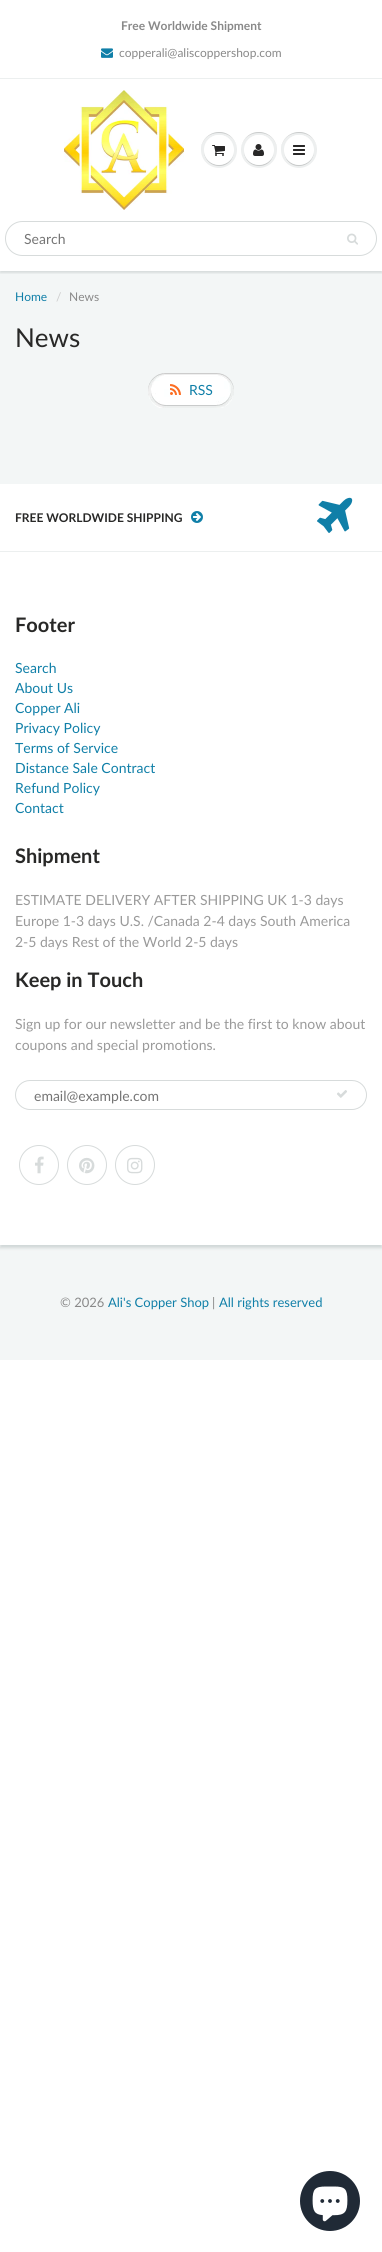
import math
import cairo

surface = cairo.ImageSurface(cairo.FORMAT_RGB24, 382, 2252)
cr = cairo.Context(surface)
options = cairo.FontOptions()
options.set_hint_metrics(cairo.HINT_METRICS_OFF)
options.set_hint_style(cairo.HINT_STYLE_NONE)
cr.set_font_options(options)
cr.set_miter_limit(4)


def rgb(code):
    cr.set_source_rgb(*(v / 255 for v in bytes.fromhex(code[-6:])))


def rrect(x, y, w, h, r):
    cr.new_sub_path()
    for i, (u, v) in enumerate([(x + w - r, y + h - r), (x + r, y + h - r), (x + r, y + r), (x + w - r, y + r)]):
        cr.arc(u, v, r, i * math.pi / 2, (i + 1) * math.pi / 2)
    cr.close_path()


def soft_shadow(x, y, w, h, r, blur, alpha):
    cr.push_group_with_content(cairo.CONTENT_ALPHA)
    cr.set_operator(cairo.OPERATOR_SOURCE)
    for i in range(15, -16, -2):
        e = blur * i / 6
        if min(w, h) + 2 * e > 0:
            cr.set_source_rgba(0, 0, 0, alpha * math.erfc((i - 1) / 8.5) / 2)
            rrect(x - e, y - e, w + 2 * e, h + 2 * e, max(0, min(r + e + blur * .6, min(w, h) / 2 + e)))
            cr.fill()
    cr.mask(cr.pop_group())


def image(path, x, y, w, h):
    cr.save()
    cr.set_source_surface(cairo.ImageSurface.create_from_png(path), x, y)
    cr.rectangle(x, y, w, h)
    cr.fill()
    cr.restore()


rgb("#ffffff")
cr.paint()
image("img/1.png", 101, 48, 12, 10)
rgb("#f3f6f6")
cr.rectangle(0, 271, 382, 213)
cr.fill()
cr.save()
cr.rectangle(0, 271, 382, 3)
cr.clip()
rgb("#0b191c")
soft_shadow(0, 80, 382, 193, 0, 1, 0.12)
cr.restore()
rgb("#ecefef")
cr.rectangle(0, 78, 382, 1)
cr.fill()
image("img/2.png", 64, 90, 120, 120)
rgb("#edefef")
cr.arc(219, 150, 18, 0, 2 * math.pi)
cr.fill()
rgb("#c9cbcb")
cr.new_path()
cr.move_to(219, 133)
cr.curve_to(231, 133, 237, 141.5, 237, 150.5)
cr.curve_to(237, 147, 236, 143, 234, 140)
cr.curve_to(224, 125, 200.5, 132.5, 201, 150.5)
cr.curve_to(201, 141.5, 207, 133, 219, 133)
cr.close_path()
cr.fill()
cr.new_path()
cr.move_to(204, 150.5)
cr.curve_to(203.5, 165.5, 223, 172, 231.5, 159.5)
cr.curve_to(233, 157, 234, 153.5, 234, 150.5)
cr.curve_to(233.5, 169.5, 204.5, 169.5, 204, 150.5)
cr.close_path()
cr.fill()
rgb("#ffffff")
cr.arc(219, 150, 15, 0, 2 * math.pi)
cr.fill()
cr.new_path()
cr.move_to(219, 136)
cr.curve_to(229, 136, 234, 143, 234, 150.5)
cr.curve_to(234, 147.5, 233, 144, 231.5, 141.5)
cr.curve_to(223, 129, 203.5, 135.5, 204, 150.5)
cr.curve_to(204, 143, 209, 136, 219, 136)
cr.close_path()
cr.fill()
image("img/3.png", 212, 145, 13, 11)
rgb("#edefef")
cr.arc(259, 150, 18, 0, 2 * math.pi)
cr.fill()
rgb("#c9cbcb")
cr.new_path()
cr.move_to(259, 133)
cr.curve_to(271, 133, 277, 141.5, 277, 150.5)
cr.curve_to(277.5, 132.5, 254, 125, 244, 140)
cr.curve_to(242, 143, 241, 147, 241, 150.5)
cr.curve_to(241, 141.5, 247, 133, 259, 133)
cr.close_path()
cr.fill()
cr.new_path()
cr.move_to(244, 150.5)
cr.curve_to(243.5, 165.5, 263, 172, 271.5, 159.5)
cr.curve_to(273, 157, 274, 153.5, 274, 150.5)
cr.curve_to(273.5, 169.5, 244.5, 169.5, 244, 150.5)
cr.close_path()
cr.fill()
rgb("#ffffff")
cr.arc(259, 150, 15, 0, 2 * math.pi)
cr.fill()
cr.new_path()
cr.move_to(259, 136)
cr.curve_to(269, 136, 274, 143, 274, 150.5)
cr.curve_to(274, 147.5, 273, 144, 271.5, 141.5)
cr.curve_to(263, 129, 243.5, 135.5, 244, 150.5)
cr.curve_to(244, 143, 249, 136, 259, 136)
cr.close_path()
cr.fill()
image("img/4.png", 253, 144, 11, 12)
rgb("#edefef")
cr.arc(299, 150, 18, 0, 2 * math.pi)
cr.fill()
rgb("#c9cbcb")
cr.new_path()
cr.move_to(299, 133)
cr.curve_to(311, 133, 317, 141.5, 317, 150.5)
cr.curve_to(317, 147, 316, 143, 314, 140)
cr.curve_to(304, 125, 280.5, 132.5, 281, 150.5)
cr.curve_to(281, 141.5, 287, 133, 299, 133)
cr.close_path()
cr.fill()
cr.new_path()
cr.move_to(284, 150.5)
cr.curve_to(284, 153.5, 285, 157, 286.5, 159.5)
cr.curve_to(295, 172, 314.5, 165.5, 314, 150.5)
cr.curve_to(313.5, 169.5, 284.5, 169.5, 284, 150.5)
cr.close_path()
cr.fill()
rgb("#ffffff")
cr.arc(299, 150, 15, 0, 2 * math.pi)
cr.fill()
cr.new_path()
cr.move_to(299, 136)
cr.curve_to(309, 136, 314, 143, 314, 150.5)
cr.curve_to(314, 147.5, 313, 144, 311.5, 141.5)
cr.curve_to(303, 129, 283.5, 135.5, 284, 150.5)
cr.curve_to(284, 143, 289, 136, 299, 136)
cr.close_path()
cr.fill()
image("img/5.png", 293, 145, 12, 10)
rrect(5.5, 221.5, 371, 34, 17)
rgb("#d7dbdb")
cr.set_line_width(1)
cr.stroke()
image("img/6.png", 347, 233, 11, 12)
image("img/7.png", 148, 373, 86, 35)
image("img/8.png", 170, 384, 11, 11)
image("img/9.png", 191, 511, 12, 12)
image("img/10.png", 317, 497, 36, 36)
rgb("#f3f6f6")
cr.rectangle(0, 1245, 382, 115)
cr.fill()
cr.save()
cr.rectangle(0, 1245, 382, 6)
cr.clip()
rgb("#d1d7d7")
soft_shadow(0, 554, 382, 694, 0, 1.5, 1)
cr.restore()
rgb("#ecefef")
cr.rectangle(0, 551, 382, 1)
cr.fill()
rrect(15.5, 1080.5, 351, 29, 14.5)
rgb("#d7dbdb")
cr.stroke()
image("img/11.png", 337, 1090, 10, 8)
cr.arc(39, 1165, 19.5, 0, 2 * math.pi)
cr.stroke()
image("img/12.png", 35, 1156, 9, 18)
cr.arc(87, 1165, 19.5, 0, 2 * math.pi)
cr.stroke()
image("img/13.png", 79, 1157, 16, 17)
cr.arc(135, 1165, 19.5, 0, 2 * math.pi)
cr.stroke()
image("img/14.png", 127, 1157, 16, 17)
rgb("#202a36")
cr.arc(330, 2201, 30, 0, 2 * math.pi)
cr.fill()
image("img/15.png", 312, 2186, 36, 36)
cr.select_font_face("Lato", cairo.FONT_SLANT_NORMAL, cairo.FONT_WEIGHT_BOLD)
cr.set_font_size(12)
rgb("#898989")
cr.move_to(121, 30)
cr.show_text("Free Worldwide Shipment")
cr.select_font_face("Lato")
cr.move_to(119, 57)
cr.show_text("copperali@aliscoppershop.com")
cr.set_font_size(14)
rgb("#757575")
cr.move_to(24, 244)
cr.show_text("Search")
cr.set_font_size(12)
rgb("#107fa8")
cr.move_to(15, 301)
cr.show_text("Home")
rgb("#cccccc")
cr.move_to(56, 301)
cr.show_text("/")
rgb("#898989")
cr.move_to(69, 301)
cr.show_text("News")
cr.set_font_size(26)
rgb("#282827")
cr.move_to(15, 347)
cr.show_text("News")
cr.set_font_size(14)
rgb("#107fa8")
cr.move_to(189, 395)
cr.show_text("RSS")
cr.select_font_face("Lato", cairo.FONT_SLANT_NORMAL, cairo.FONT_WEIGHT_BOLD)
cr.set_font_size(12)
rgb("#282827")
cr.move_to(15, 522)
cr.show_text("FREE WORLDWIDE SHIPPING")
cr.set_font_size(20)
cr.move_to(15, 632)
cr.show_text("Footer")
cr.select_font_face("Lato")
cr.set_font_size(14)
rgb("#107fa8")
for x, y, s in [
    (15, 673, "Search"),
    (15, 693, "About Us"),
    (15, 713, "Copper Ali"),
    (15, 733, "Privacy Policy"),
    (15, 753, "Terms of Service"),
    (15, 773, "Distance Sale Contract"),
    (15, 793, "Refund Policy"),
    (15, 813, "Contact"),
]:
    cr.move_to(x, y)
    cr.show_text(s)
cr.select_font_face("Lato", cairo.FONT_SLANT_NORMAL, cairo.FONT_WEIGHT_BOLD)
cr.set_font_size(20)
rgb("#282827")
cr.move_to(15, 863)
cr.show_text("Shipment")
cr.select_font_face("Lato")
cr.set_font_size(14)
rgb("#9a9a9a")
for x, y, s in [
    (15, 905, "ESTIMATE DELIVERY AFTER SHIPPING UK 1-3 days"),
    (15, 926, "Europe 1-3 days U.S. /Canada 2-4 days South America"),
    (15, 947, "2-5 days Rest of the World 2-5 days"),
]:
    cr.move_to(x, y)
    cr.show_text(s)
cr.select_font_face("Lato", cairo.FONT_SLANT_NORMAL, cairo.FONT_WEIGHT_BOLD)
cr.set_font_size(20)
rgb("#282827")
cr.move_to(15, 987)
cr.show_text("Keep in Touch")
cr.select_font_face("Lato")
cr.set_font_size(14)
rgb("#9a9a9a")
cr.move_to(15, 1029)
cr.show_text("Sign up for our newsletter and be the first to know about")
cr.move_to(15, 1050)
cr.show_text("coupons and special promotions.")
rgb("#757575")
cr.move_to(34, 1101)
cr.show_text("email@example.com")
cr.set_font_size(13)
rgb("#898989")
cr.move_to(60, 1307)
cr.show_text("© 2026")
rgb("#107fa8")
cr.move_to(108, 1307)
cr.show_text("Ali's Copper Shop")
rgb("#898989")
cr.move_to(212, 1307)
cr.show_text("|")
rgb("#107fa8")
cr.move_to(219, 1307)
cr.show_text("All rights reserved")
surface.write_to_png("page.png")
